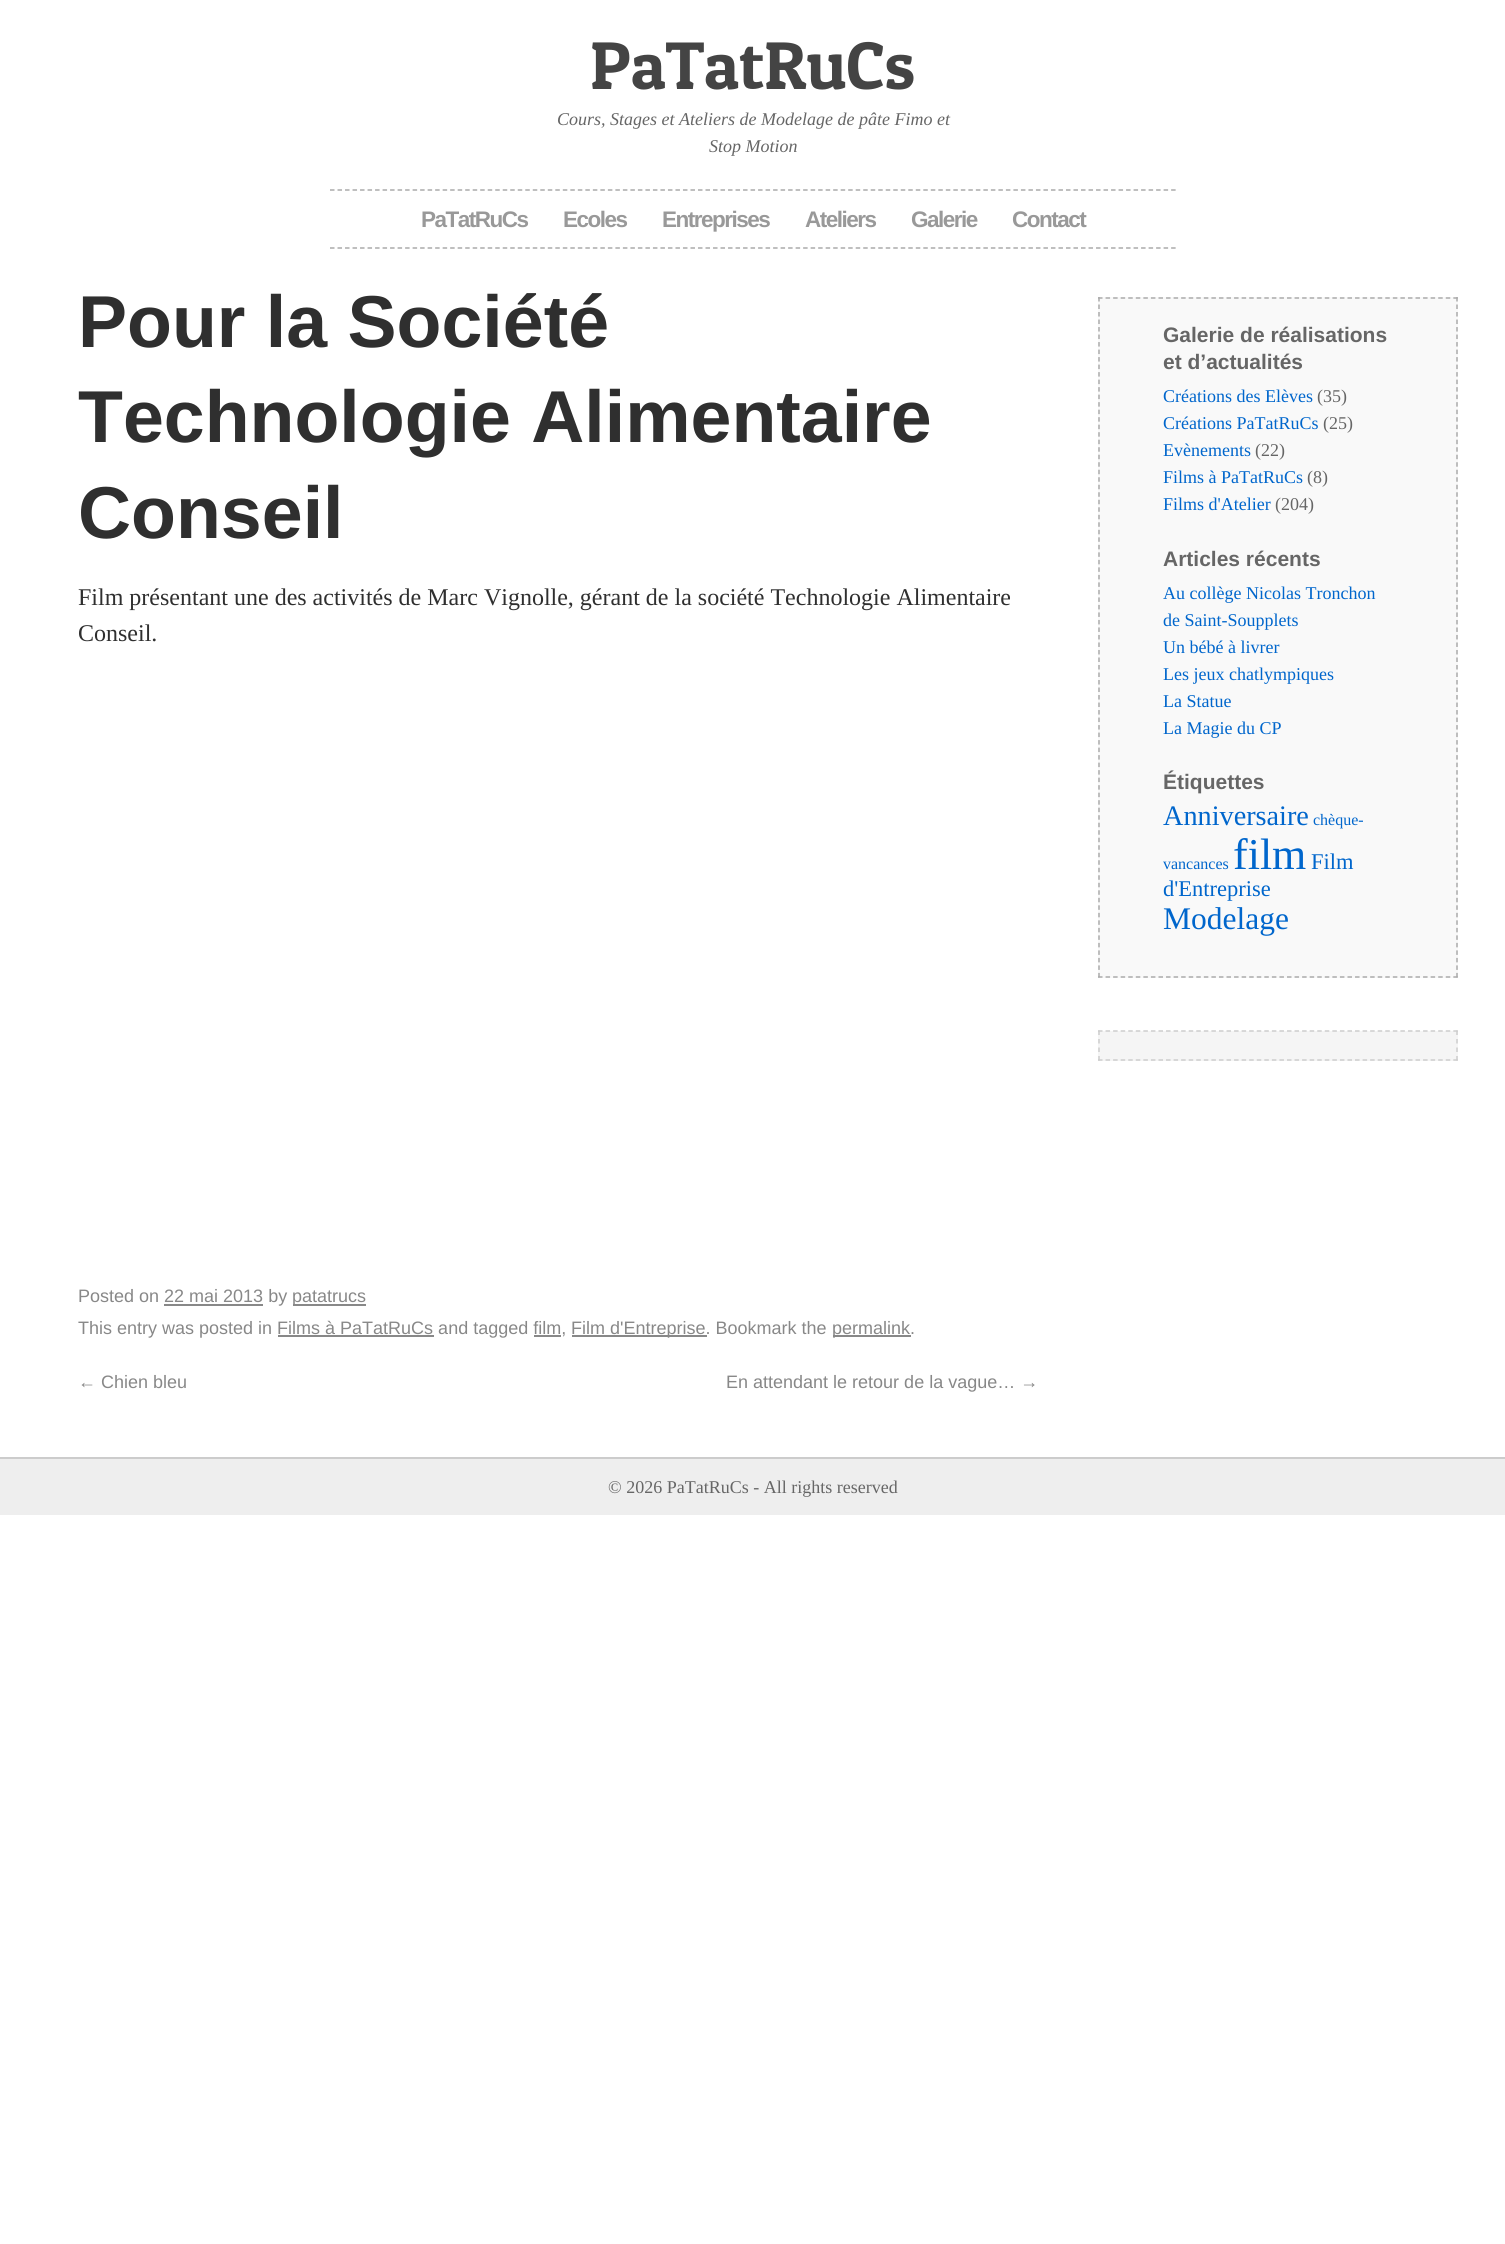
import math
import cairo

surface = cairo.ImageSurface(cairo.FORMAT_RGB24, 1505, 2244)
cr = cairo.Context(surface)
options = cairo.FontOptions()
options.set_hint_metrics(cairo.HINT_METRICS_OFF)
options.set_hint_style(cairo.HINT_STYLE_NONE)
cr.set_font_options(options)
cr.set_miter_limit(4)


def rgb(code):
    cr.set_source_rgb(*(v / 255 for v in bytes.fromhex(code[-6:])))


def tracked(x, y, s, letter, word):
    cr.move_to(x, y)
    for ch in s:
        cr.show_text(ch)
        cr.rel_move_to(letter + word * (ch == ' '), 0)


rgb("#ffffff")
cr.paint()
cr.new_path()
cr.move_to(330, 190)
cr.line_to(1176, 190)
rgb("#aaaaaa")
cr.set_line_width(1.5)
cr.set_dash([4.5, 3.01])
cr.stroke()
cr.new_path()
cr.move_to(330, 248)
cr.line_to(1176, 248)
cr.stroke()
for x, y, w, h, color in [
    (293, 1304, 73, 2, "#888888"),
    (164, 1304, 99, 2, "#888888"),
    (572, 1335, 135, 2, "#888888"),
    (833, 1335, 78, 2, "#888888"),
    (278, 1335, 156, 2, "#888888"),
    (534, 1335, 27, 2, "#888888"),
    (1098, 297, 360, 681, "#f9f9f9"),
]:
    rgb(color)
    cr.rectangle(x, y, w, h)
    cr.fill()
cr.new_path()
cr.move_to(1098, 298)
cr.line_to(1458, 298)
rgb("#aaaaaa")
cr.set_dash([4.5, 3.06])
cr.stroke()
cr.new_path()
cr.move_to(1457, 297)
cr.line_to(1457, 978)
cr.set_dash([4.5, 3.01])
cr.stroke()
cr.new_path()
cr.move_to(1098, 977)
cr.line_to(1458, 977)
cr.set_dash([4.5, 3.06])
cr.stroke()
cr.new_path()
cr.move_to(1099, 297)
cr.line_to(1099, 978)
cr.set_dash([4.5, 3.01])
cr.stroke()
rgb("#f5f5f5")
cr.rectangle(1098, 1031, 360, 30)
cr.fill()
cr.new_path()
cr.move_to(1098, 1031)
cr.line_to(1458, 1031)
rgb("#cccccc")
cr.set_dash([4.5, 3.06])
cr.stroke()
cr.new_path()
cr.move_to(1457, 1030.5)
cr.line_to(1457, 1060.5)
cr.set_dash([4.5, 4])
cr.stroke()
cr.new_path()
cr.move_to(1098, 1060)
cr.line_to(1458, 1060)
cr.set_dash([4.5, 3.06])
cr.stroke()
cr.new_path()
cr.move_to(1099, 1030.5)
cr.line_to(1099, 1060.5)
cr.set_dash([4.5, 4])
cr.stroke()
rgb("#eeeeee")
cr.rectangle(0, 1459, 1505, 56)
cr.fill()
rgb("#cccccc")
cr.rectangle(0, 1457, 1505, 2)
cr.fill()
cr.select_font_face("Patua One")
cr.set_font_size(67.5)
rgb("#444444")
cr.move_to(590, 89)
cr.show_text("PaTatRuCs")
cr.select_font_face("Liberation Serif", cairo.FONT_SLANT_ITALIC)
cr.set_font_size(18)
rgb("#666666")
cr.move_to(557, 125)
cr.show_text("Cours, Stages et Ateliers de Modelage de pâte Fimo et")
cr.move_to(709, 152)
cr.show_text("Stop Motion")
cr.select_font_face("Liberation Sans", cairo.FONT_SLANT_NORMAL, cairo.FONT_WEIGHT_BOLD)
cr.set_font_size(22.5)
rgb("#999999")
for x, y, s in [
    (421, 227, "PaTatRuCs"),
    (563, 227, "Ecoles"),
    (662, 227, "Entreprises"),
    (805, 227, "Ateliers"),
    (911, 227, "Galerie"),
    (1012, 227, "Contact"),
]:
    tracked(x, y, s, -1.5, 0)
cr.set_font_size(73.5)
rgb("#2f2f2f")
for x, y, s in [
    (78, 347, "Pour la Société"),
    (78, 442, "Technologie Alimentaire"),
    (78, 538, "Conseil"),
]:
    cr.move_to(x, y)
    cr.show_text(s)
cr.select_font_face("Liberation Serif")
cr.set_font_size(24)
cr.move_to(78, 605)
cr.show_text("Film présentant une des activités de Marc Vignolle, gérant de la société Technologie Alimentaire")
cr.move_to(78, 641)
cr.show_text("Conseil.")
cr.select_font_face("Liberation Sans")
cr.set_font_size(18)
rgb("#888888")
for x, y, s in [
    (78, 1302, "Posted on 22 mai 2013 by"),
    (292, 1302, "patatrucs"),
    (78, 1334, "This entry was posted in Films à PaTatRuCs and tagged film,"),
    (571, 1334, "Film d'Entreprise. Bookmark the"),
    (832, 1334, "permalink."),
    (78, 1388, "← Chien bleu"),
    (726, 1388, "En attendant le retour de la vague… →"),
]:
    cr.move_to(x, y)
    cr.show_text(s)
cr.select_font_face("Liberation Sans", cairo.FONT_SLANT_NORMAL, cairo.FONT_WEIGHT_BOLD)
cr.set_font_size(21)
rgb("#666666")
cr.move_to(1163, 342)
cr.show_text("Galerie de réalisations")
cr.move_to(1163, 369)
cr.show_text("et d’actualités")
cr.select_font_face("Liberation Serif")
cr.set_font_size(18)
rgb("#0066cc")
cr.move_to(1163, 402)
cr.show_text("Créations des Elèves")
rgb("#666666")
cr.move_to(1317, 402)
cr.show_text("(35)")
rgb("#0066cc")
cr.move_to(1163, 429)
cr.show_text("Créations PaTatRuCs")
rgb("#666666")
cr.move_to(1323, 429)
cr.show_text("(25)")
rgb("#0066cc")
cr.move_to(1163, 456)
cr.show_text("Evènements")
rgb("#666666")
cr.move_to(1255, 456)
cr.show_text("(22)")
rgb("#0066cc")
cr.move_to(1163, 483)
cr.show_text("Films à PaTatRuCs")
rgb("#666666")
cr.move_to(1307, 483)
cr.show_text("(8)")
rgb("#0066cc")
cr.move_to(1163, 510)
cr.show_text("Films d'Atelier")
rgb("#666666")
cr.move_to(1275, 510)
cr.show_text("(204)")
cr.select_font_face("Liberation Sans", cairo.FONT_SLANT_NORMAL, cairo.FONT_WEIGHT_BOLD)
cr.set_font_size(21)
cr.move_to(1163, 566)
cr.show_text("Articles récents")
cr.select_font_face("Liberation Serif")
cr.set_font_size(18)
rgb("#0066cc")
for x, y, s in [
    (1163, 599, "Au collège Nicolas Tronchon"),
    (1163, 626, "de Saint-Soupplets"),
    (1163, 653, "Un bébé à livrer"),
    (1163, 680, "Les jeux chatlympiques"),
    (1163, 707, "La Statue"),
    (1163, 734, "La Magie du CP"),
]:
    cr.move_to(x, y)
    cr.show_text(s)
cr.select_font_face("Liberation Sans", cairo.FONT_SLANT_NORMAL, cairo.FONT_WEIGHT_BOLD)
cr.set_font_size(21)
rgb("#666666")
cr.move_to(1163, 789)
cr.show_text("Étiquettes")
cr.select_font_face("Liberation Serif")
cr.set_font_size(28.25)
rgb("#0066cc")
cr.move_to(1163, 825)
cr.show_text("Anniversaire")
cr.set_font_size(16)
cr.move_to(1313, 825)
cr.show_text("chèque-")
cr.move_to(1163, 869)
cr.show_text("vancances")
cr.set_font_size(44)
cr.move_to(1233, 869)
cr.show_text("film")
cr.set_font_size(22.5)
cr.move_to(1311, 869)
cr.show_text("Film")
cr.move_to(1163, 896)
cr.show_text("d'Entreprise")
cr.set_font_size(31.5)
cr.move_to(1163, 929)
cr.show_text("Modelage")
cr.set_font_size(18)
rgb("#666666")
cr.move_to(608, 1493)
cr.show_text("© 2026 PaTatRuCs - All rights reserved")
surface.write_to_png("page.png")
